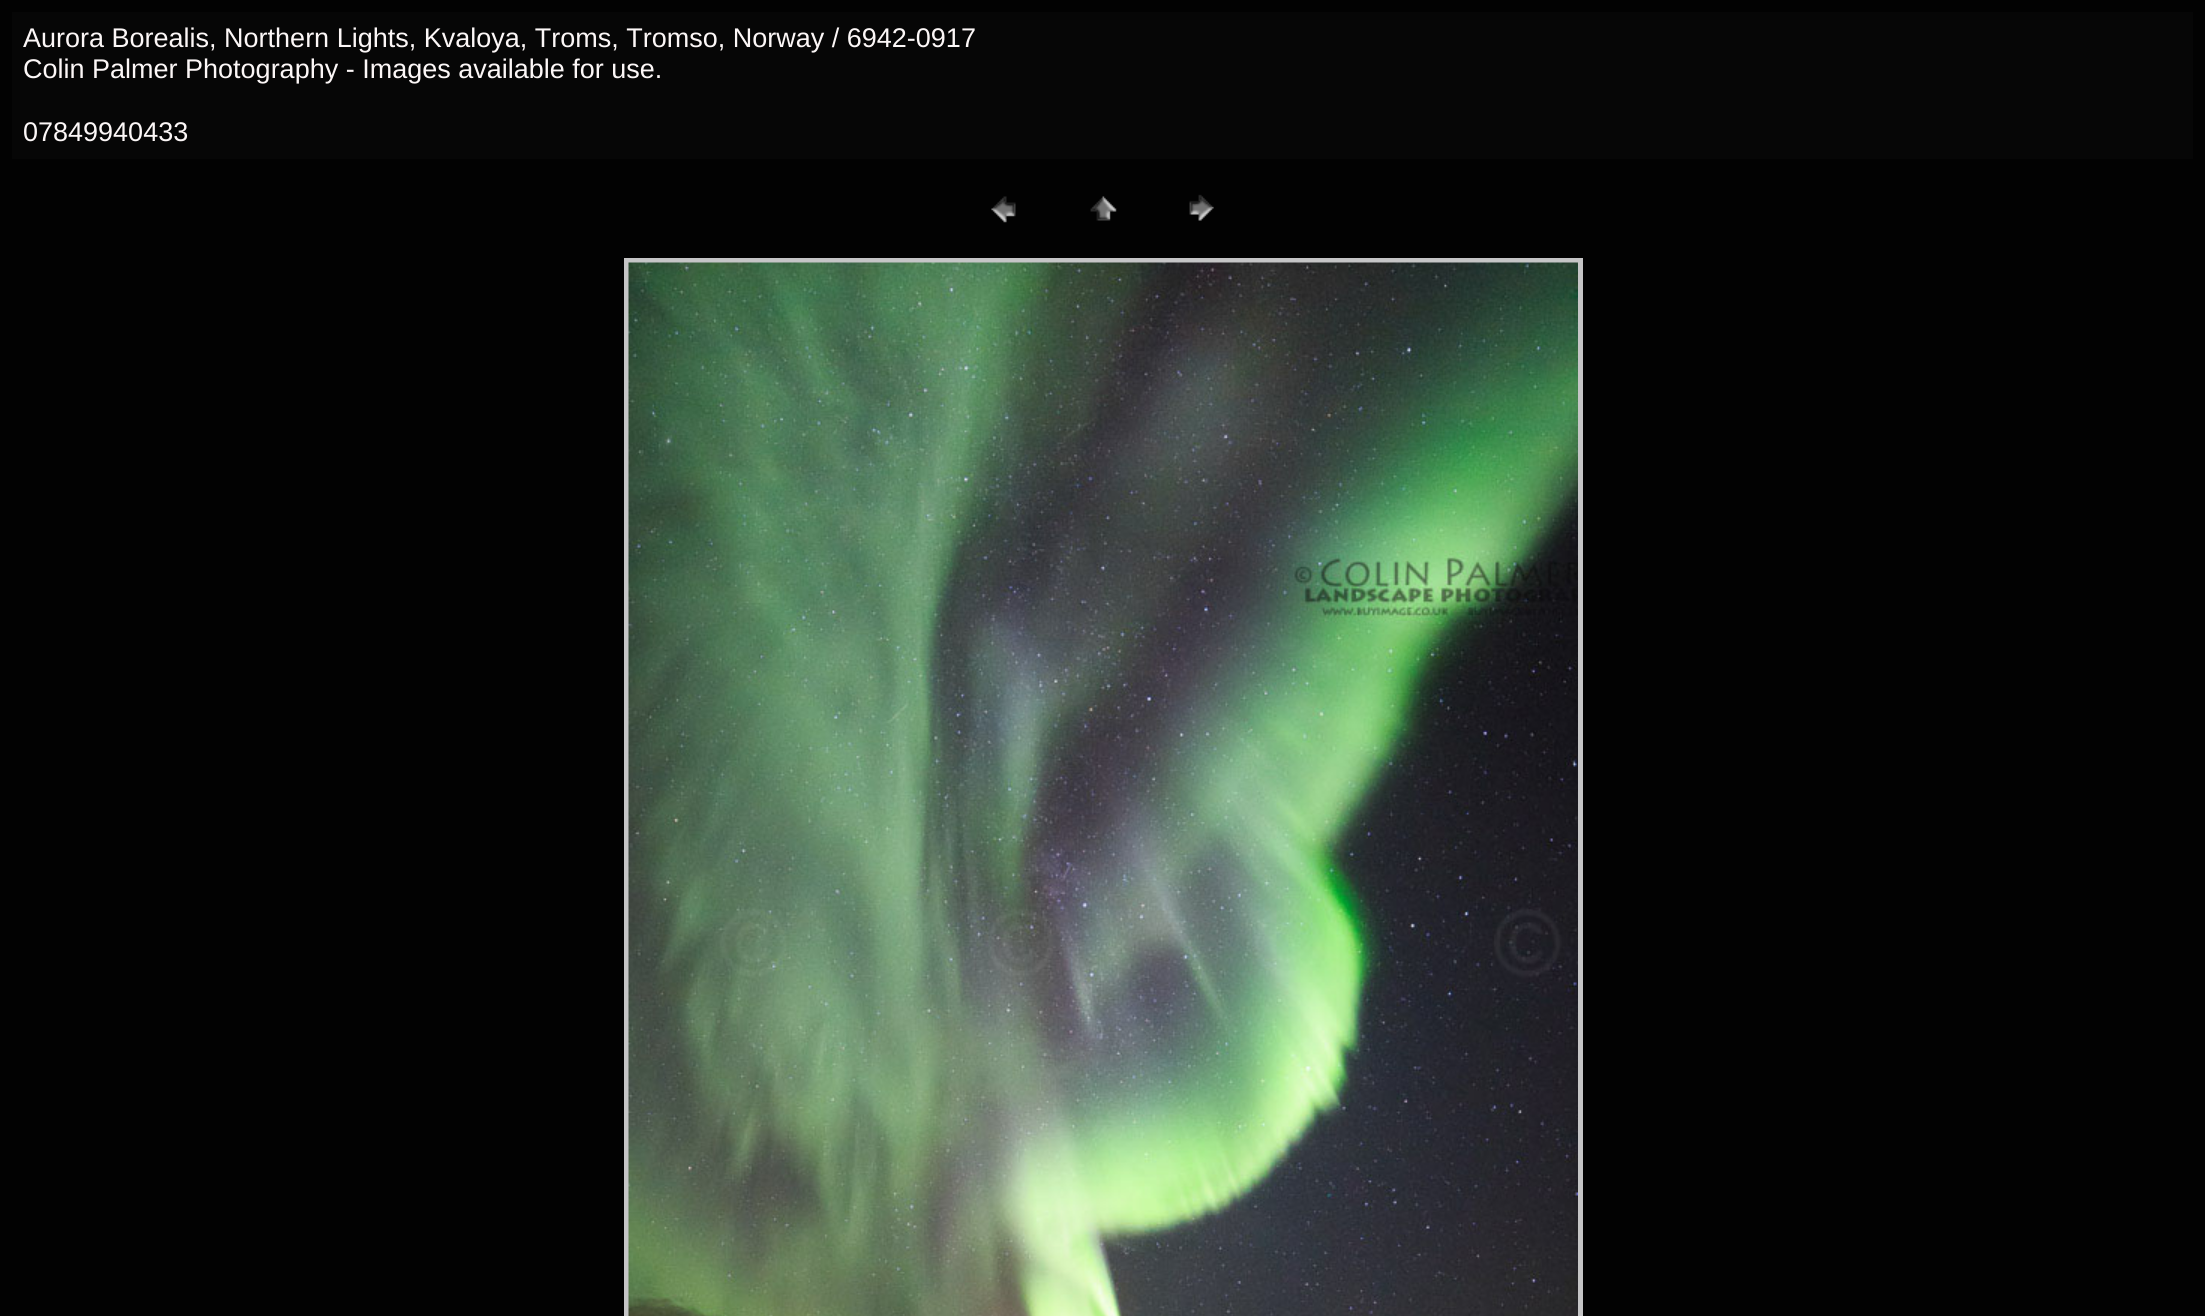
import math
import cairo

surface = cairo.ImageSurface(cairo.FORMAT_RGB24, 2205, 1316)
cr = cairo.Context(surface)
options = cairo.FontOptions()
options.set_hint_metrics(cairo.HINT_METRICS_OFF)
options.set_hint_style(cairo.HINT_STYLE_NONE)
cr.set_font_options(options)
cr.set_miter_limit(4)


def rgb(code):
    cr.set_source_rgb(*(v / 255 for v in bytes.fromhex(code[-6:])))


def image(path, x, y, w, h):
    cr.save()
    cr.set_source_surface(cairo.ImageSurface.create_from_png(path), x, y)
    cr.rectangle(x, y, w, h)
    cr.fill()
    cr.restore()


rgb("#020202")
cr.paint()
rgb("#060606")
cr.rectangle(12, 12, 2181, 147)
cr.fill()
image("img/1.png", 991, 196, 25, 27)
image("img/2.png", 1090, 196, 27, 25)
image("img/3.png", 1189, 194, 25, 27)
cr.rectangle(626.5, 260.5, 954, 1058)
rgb("#c5c5c6")
cr.set_line_width(5)
cr.stroke()
image("img/4.png", 628, 262, 950, 1054)
cr.select_font_face("Liberation Sans")
cr.set_font_size(27)
rgb("#fcf7f7")
for x, y, s in [
    (23, 47, "Aurora Borealis, Northern Lights, Kvaloya, Troms, Tromso, Norway / 6942-0917"),
    (23, 78, "Colin Palmer Photography - Images available for use."),
    (23, 141, "07849940433"),
]:
    cr.move_to(x, y)
    cr.show_text(s)
surface.write_to_png("page.png")
